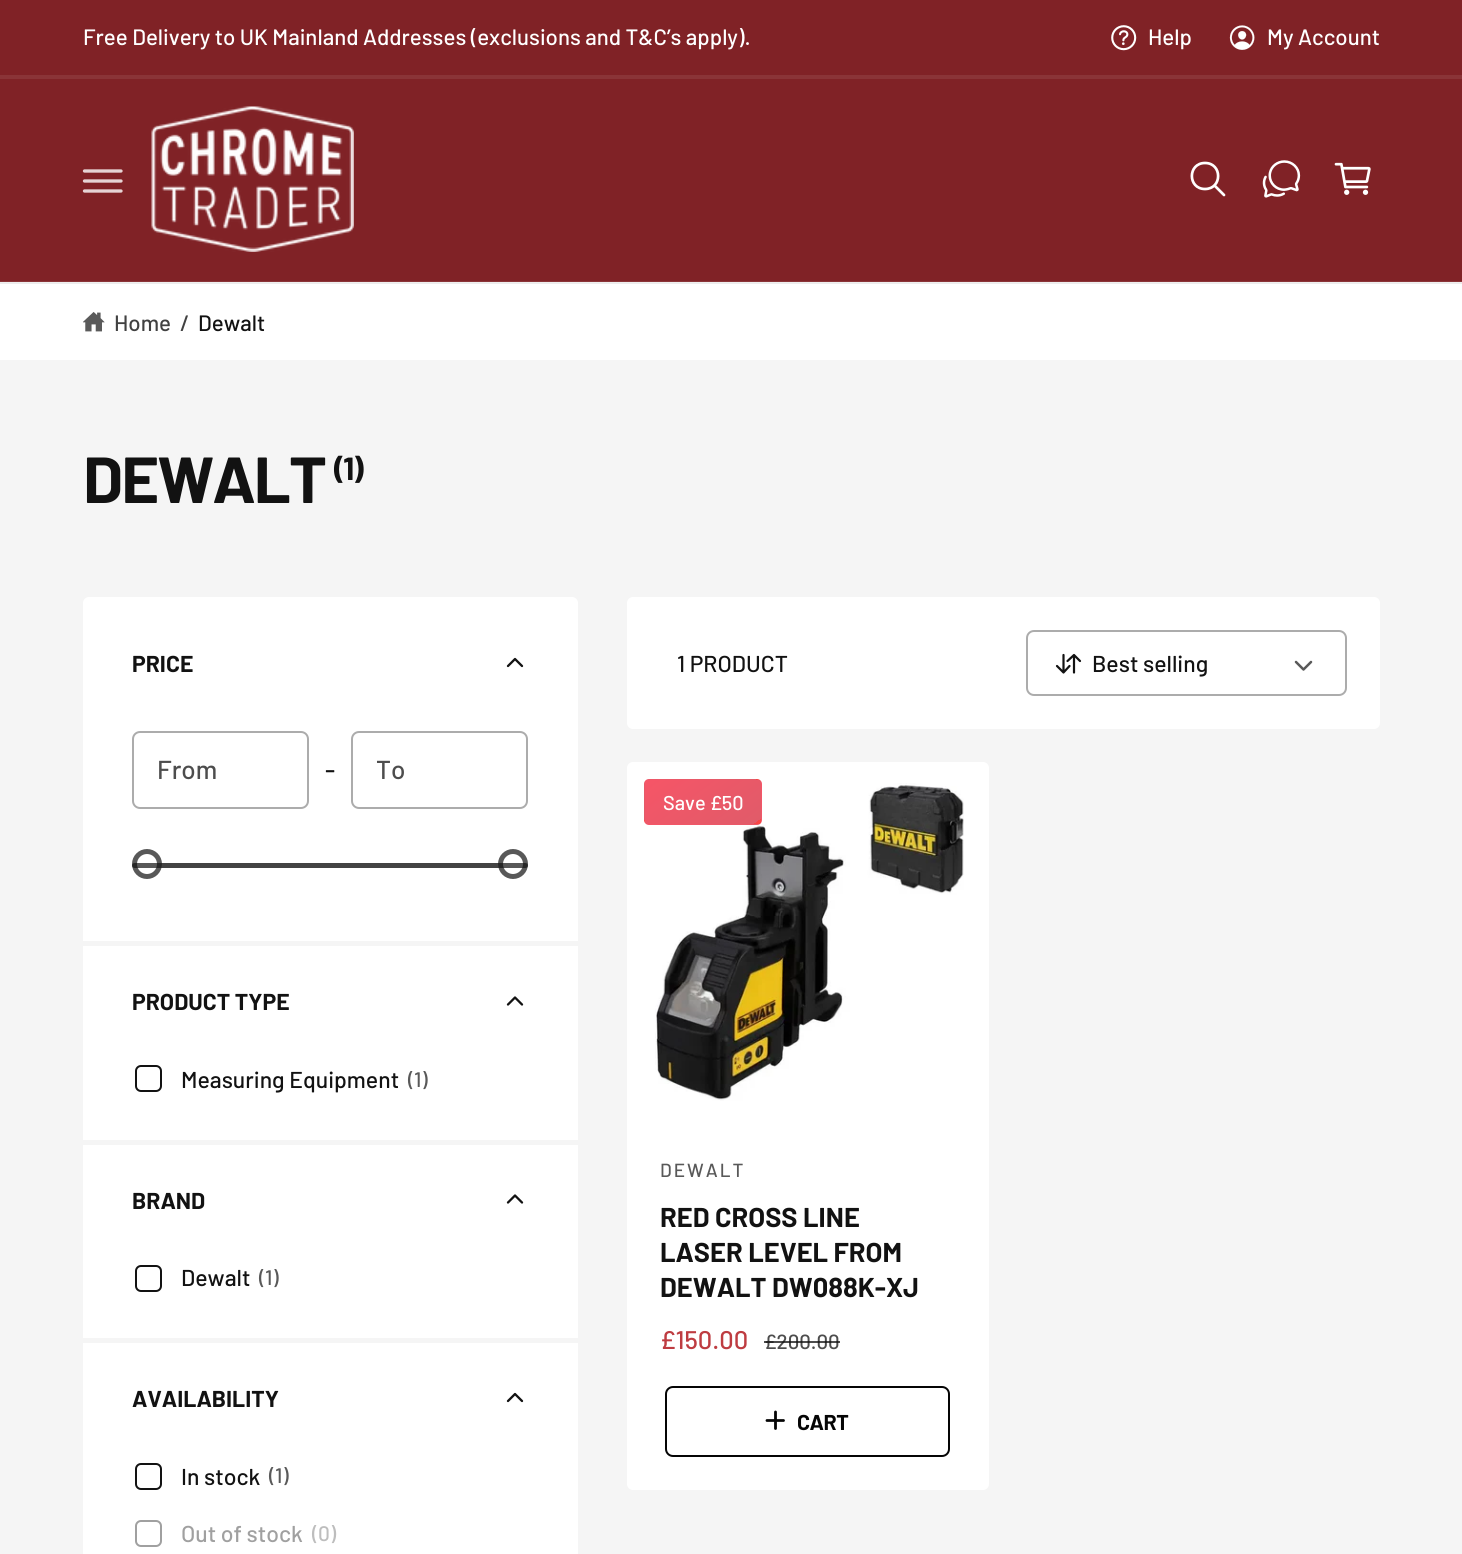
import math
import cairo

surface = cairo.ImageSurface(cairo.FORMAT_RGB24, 1462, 1554)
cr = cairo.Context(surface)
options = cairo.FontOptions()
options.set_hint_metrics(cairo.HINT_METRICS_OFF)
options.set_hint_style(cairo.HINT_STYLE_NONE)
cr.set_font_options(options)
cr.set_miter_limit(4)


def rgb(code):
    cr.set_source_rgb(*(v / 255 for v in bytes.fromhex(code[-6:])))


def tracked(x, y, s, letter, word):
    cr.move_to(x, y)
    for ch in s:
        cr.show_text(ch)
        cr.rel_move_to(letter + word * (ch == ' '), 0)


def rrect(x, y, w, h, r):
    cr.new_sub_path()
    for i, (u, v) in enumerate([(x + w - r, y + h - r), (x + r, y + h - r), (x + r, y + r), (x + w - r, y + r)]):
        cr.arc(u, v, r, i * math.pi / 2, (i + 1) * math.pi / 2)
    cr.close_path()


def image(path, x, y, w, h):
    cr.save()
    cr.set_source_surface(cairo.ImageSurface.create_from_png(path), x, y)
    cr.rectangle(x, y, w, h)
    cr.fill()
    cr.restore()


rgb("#f5f5f5")
cr.paint()
rgb("#802226")
cr.rectangle(0, 0, 1462, 75)
cr.fill()
rgb("#8a3437")
cr.rectangle(0, 75, 1462, 4)
cr.fill()
image("img/1.png", 1111, 25, 26, 26)
image("img/2.png", 1229, 25, 26, 25)
rgb("#802226")
cr.rectangle(0, 79, 1462, 202)
cr.fill()
rgb("#8a3437")
cr.rectangle(0, 281, 1462, 1)
cr.fill()
cr.new_path()
cr.move_to(84.5, 171)
cr.line_to(121, 171)
cr.move_to(84.5, 181)
cr.line_to(121, 181)
cr.move_to(84.5, 191)
cr.line_to(121, 191)
rgb("#e6d3d4")
cr.set_line_width(3.3)
cr.set_line_cap(cairo.LINE_CAP_ROUND)
cr.stroke()
image("img/3.png", 151, 106, 203, 146)
cr.new_path()
cr.move_to(1205, 163)
cr.curve_to(1187.5, 163, 1187.5, 189, 1205, 189)
cr.curve_to(1222.5, 189, 1222.5, 163, 1205, 163)
cr.close_path()
rgb("#ffffff")
cr.set_line_width(2.7)
cr.set_line_cap(cairo.LINE_CAP_BUTT)
cr.stroke()
cr.new_path()
cr.move_to(1215, 186)
cr.line_to(1224, 195)
cr.set_line_cap(cairo.LINE_CAP_ROUND)
cr.stroke()
image("img/4.png", 1262, 160, 39, 38)
image("img/5.png", 1334, 162, 37, 33)
for x, y, w, h, color in [
    (0, 284, 1462, 76, "#ffffff"),
    (0, 283, 1462, 1, "#ececec"),
    (0, 282, 1462, 1, "#eeeeee"),
]:
    rgb(color)
    cr.rectangle(x, y, w, h)
    cr.fill()
image("img/6.png", 83, 312, 22, 20)
rgb("#ffffff")
rrect(83, 597, 495, 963, 6)
cr.fill()
cr.new_path()
cr.move_to(522, 666)
cr.line_to(515, 659)
cr.line_to(508, 666)
rgb("#121212")
cr.set_line_width(2.3)
cr.set_line_join(cairo.LINE_JOIN_ROUND)
cr.stroke()
rrect(133, 732, 175, 76, 7)
rgb("#acacac")
cr.set_line_width(2)
cr.set_line_cap(cairo.LINE_CAP_BUTT)
cr.set_line_join(cairo.LINE_JOIN_MITER)
cr.stroke()
rrect(352, 732, 175, 76, 7)
cr.stroke()
rgb("#b8b8b8")
rrect(132, 863, 396, 5, 2.5)
cr.fill()
rgb("#ffffff")
cr.arc(147, 864, 15, 0, 2 * math.pi)
cr.fill()
cr.arc(147, 864, 12.5, 0, 2 * math.pi)
cr.set_source_rgba(0.071, 0.071, 0.071, 0.7)
cr.set_line_width(5)
cr.stroke()
rgb("#ffffff")
cr.arc(513, 864, 15, 0, 2 * math.pi)
cr.fill()
cr.arc(513, 864, 12.5, 0, 2 * math.pi)
cr.set_source_rgba(0.071, 0.071, 0.071, 0.7)
cr.stroke()
rrect(132, 863, 396, 5, 2.5)
cr.fill()
rgb("#f5f5f5")
cr.rectangle(83, 941, 495, 5)
cr.fill()
cr.new_path()
cr.move_to(522, 1004.5)
cr.line_to(515, 997.5)
cr.line_to(508, 1004.5)
rgb("#121212")
cr.set_line_width(2.3)
cr.set_line_cap(cairo.LINE_CAP_ROUND)
cr.set_line_join(cairo.LINE_JOIN_ROUND)
cr.stroke()
rrect(136, 1066, 25, 25, 5)
cr.set_line_width(2)
cr.set_line_cap(cairo.LINE_CAP_BUTT)
cr.set_line_join(cairo.LINE_JOIN_MITER)
cr.stroke()
rgb("#f5f5f5")
cr.rectangle(83, 1140, 495, 5)
cr.fill()
cr.new_path()
cr.move_to(522, 1202.5)
cr.line_to(515, 1195.5)
cr.line_to(508, 1202.5)
rgb("#121212")
cr.set_line_width(2.3)
cr.set_line_cap(cairo.LINE_CAP_ROUND)
cr.set_line_join(cairo.LINE_JOIN_ROUND)
cr.stroke()
rrect(136, 1266, 25, 25, 5)
cr.set_line_width(2)
cr.set_line_cap(cairo.LINE_CAP_BUTT)
cr.set_line_join(cairo.LINE_JOIN_MITER)
cr.stroke()
rgb("#f5f5f5")
cr.rectangle(83, 1338, 495, 5)
cr.fill()
cr.new_path()
cr.move_to(522, 1401)
cr.line_to(515, 1394)
cr.line_to(508, 1401)
rgb("#121212")
cr.set_line_width(2.3)
cr.set_line_cap(cairo.LINE_CAP_ROUND)
cr.set_line_join(cairo.LINE_JOIN_ROUND)
cr.stroke()
rrect(136, 1464, 25, 25, 5)
cr.set_line_width(2)
cr.set_line_cap(cairo.LINE_CAP_BUTT)
cr.set_line_join(cairo.LINE_JOIN_MITER)
cr.stroke()
rrect(136, 1521, 25, 25, 5)
rgb("#a0a0a0")
cr.stroke()
rgb("#ffffff")
rrect(627, 597, 753, 132, 6)
cr.fill()
cr.new_path()
cr.move_to(1080, 661)
cr.line_to(1074, 655)
cr.line_to(1067.5, 661)
cr.move_to(1074, 655.5)
cr.line_to(1074, 672.5)
cr.move_to(1057, 666)
cr.line_to(1063.5, 672.5)
cr.line_to(1069.5, 666)
cr.move_to(1063.5, 671.5)
cr.line_to(1063.5, 655)
rgb("#121212")
cr.set_line_width(2.2)
cr.set_line_cap(cairo.LINE_CAP_ROUND)
cr.set_line_join(cairo.LINE_JOIN_ROUND)
cr.stroke()
cr.new_path()
cr.move_to(1296, 662)
cr.line_to(1303.5, 669.5)
cr.line_to(1311, 662)
rgb("#595959")
cr.set_line_width(2.5)
cr.stroke()
rrect(1027, 631, 319, 64, 7)
rgb("#acacac")
cr.set_line_width(2)
cr.set_line_cap(cairo.LINE_CAP_BUTT)
cr.set_line_join(cairo.LINE_JOIN_MITER)
cr.stroke()
rgb("#ffffff")
rrect(627, 762, 362, 728, 6)
cr.fill()
image("img/7.png", 655, 783, 309, 318)
cr.save()
rrect(644, 779, 118, 46, 5)
cr.clip()
gradient = cairo.LinearGradient(672, 717, 733, 800)
gradient.add_color_stop_rgba(0, 0.965, 0.333, 0.404, 1)
gradient.add_color_stop_rgba(0.97, 0.882, 0.357, 0.412, 1)
gradient.add_color_stop_rgba(0.97, 0.976, 0.271, 0.271, 1)
cr.set_source(gradient)
cr.rectangle(645, 779, 116, 1)
cr.fill()
gradient = cairo.LinearGradient(557, 760, 618, 843)
gradient.add_color_stop_rgba(0, 0.965, 0.333, 0.404, 1)
gradient.add_color_stop_rgba(0.97, 0.882, 0.357, 0.412, 1)
gradient.add_color_stop_rgba(0.97, 0.976, 0.271, 0.271, 1)
cr.set_source(gradient)
cr.rectangle(644, 780, 1, 44)
cr.fill()
gradient = cairo.LinearGradient(672, 760, 733, 843)
gradient.add_color_stop_rgba(0, 0.965, 0.333, 0.404, 1)
gradient.add_color_stop_rgba(0.97, 0.882, 0.357, 0.412, 1)
gradient.add_color_stop_rgba(0.97, 0.976, 0.271, 0.271, 1)
cr.set_source(gradient)
cr.rectangle(645, 780, 116, 44)
cr.fill()
gradient = cairo.LinearGradient(788, 760, 849, 843)
gradient.add_color_stop_rgba(0, 0.965, 0.333, 0.404, 1)
gradient.add_color_stop_rgba(0.97, 0.882, 0.357, 0.412, 1)
gradient.add_color_stop_rgba(0.97, 0.976, 0.271, 0.271, 1)
cr.set_source(gradient)
cr.rectangle(761, 780, 1, 44)
cr.fill()
gradient = cairo.LinearGradient(672, 804, 733, 887)
gradient.add_color_stop_rgba(0, 0.957, 0.169, 0.255, 0.8)
gradient.add_color_stop_rgba(0.97, 0.855, 0.196, 0.263, 0.8)
gradient.add_color_stop_rgba(0.97, 0.969, 0.09, 0.09, 0.8)
cr.set_source(gradient)
cr.rectangle(645, 824, 116, 1)
cr.fill()
cr.restore()
cr.new_path()
cr.move_to(775.5, 1412)
cr.line_to(775.5, 1428.5)
cr.move_to(783.5, 1420.5)
cr.line_to(767, 1420.5)
rgb("#050505")
cr.set_line_width(2.8)
cr.set_line_cap(cairo.LINE_CAP_ROUND)
cr.set_line_join(cairo.LINE_JOIN_ROUND)
cr.stroke()
rrect(666, 1387, 283, 69, 7)
cr.set_line_width(2)
cr.set_line_cap(cairo.LINE_CAP_BUTT)
cr.set_line_join(cairo.LINE_JOIN_MITER)
cr.stroke()
cr.select_font_face("Barlow Medium")
cr.set_font_size(22.25)
rgb("#ffffff")
for x, y, s in [
    (83, 45, "Free Delivery to UK Mainland Addresses (exclusions and T&C’s apply)."),
    (1148, 45, "Help"),
    (1267, 45, "My Account"),
]:
    cr.move_to(x, y)
    cr.show_text(s)
rgb("#414141")
cr.move_to(114, 331)
cr.show_text("Home")
cr.move_to(180, 331)
cr.show_text("/")
rgb("#121212")
cr.move_to(198, 331)
cr.show_text("Dewalt")
cr.select_font_face("Barlow", cairo.FONT_SLANT_NORMAL, cairo.FONT_WEIGHT_BOLD)
cr.set_font_size(65)
tracked(83, 503, "DEWALT", -2, 0)
cr.set_font_size(32)
tracked(334, 480, "(1)", -2, 0)
cr.set_font_size(23)
cr.move_to(132, 672)
cr.show_text("PRICE")
cr.select_font_face("Barlow Medium")
cr.set_font_size(26)
rgb("#4d4d4d")
cr.move_to(157, 779)
cr.show_text("From")
cr.set_font_size(25.5)
rgb("#121212")
cr.move_to(325, 779)
cr.show_text("-")
cr.set_font_size(26)
rgb("#4d4d4d")
cr.move_to(376, 779)
cr.show_text("To")
cr.select_font_face("Barlow", cairo.FONT_SLANT_NORMAL, cairo.FONT_WEIGHT_BOLD)
cr.set_font_size(23)
rgb("#121212")
cr.move_to(132, 1010)
cr.show_text("PRODUCT TYPE")
cr.select_font_face("Barlow Medium")
cr.move_to(181, 1088)
cr.show_text("Measuring Equipment")
cr.set_font_size(21)
rgb("#595959")
cr.move_to(408, 1087)
cr.show_text("(1)")
cr.select_font_face("Barlow", cairo.FONT_SLANT_NORMAL, cairo.FONT_WEIGHT_BOLD)
cr.set_font_size(23)
rgb("#121212")
cr.move_to(132, 1209)
cr.show_text("BRAND")
cr.select_font_face("Barlow Medium")
cr.move_to(181, 1286)
cr.show_text("Dewalt")
cr.set_font_size(21)
rgb("#595959")
cr.move_to(259, 1285)
cr.show_text("(1)")
cr.select_font_face("Barlow", cairo.FONT_SLANT_NORMAL, cairo.FONT_WEIGHT_BOLD)
cr.set_font_size(23)
rgb("#121212")
cr.move_to(132, 1407)
cr.show_text("AVAILABILITY")
cr.select_font_face("Barlow Medium")
cr.move_to(181, 1485)
cr.show_text("In stock")
cr.set_font_size(21)
rgb("#595959")
cr.move_to(269, 1483)
cr.show_text("(1)")
cr.set_font_size(23)
rgb("#a0a0a0")
cr.move_to(181, 1542)
cr.show_text("Out of stock")
cr.set_font_size(21)
rgb("#bdbdbd")
cr.move_to(312, 1541)
cr.show_text("(0)")
cr.set_font_size(23)
rgb("#121212")
cr.move_to(677, 672)
cr.show_text("1 PRODUCT")
cr.move_to(1092, 672)
cr.show_text("Best selling")
cr.set_font_size(20)
rgb("#ffffff")
cr.move_to(663, 810)
cr.show_text("Save £50")
cr.set_font_size(19)
rgb("#595959")
tracked(660, 1177, "DEWALT", 2, 0)
cr.select_font_face("Barlow", cairo.FONT_SLANT_NORMAL, cairo.FONT_WEIGHT_BOLD)
cr.set_font_size(27.25)
rgb("#121212")
for x, y, s in [
    (660, 1227, "RED CROSS LINE"),
    (660, 1262, "LASER LEVEL FROM"),
    (660, 1297, "DEWALT DW088K-XJ"),
]:
    cr.move_to(x, y)
    cr.show_text(s)
cr.select_font_face("Barlow Medium")
cr.set_font_size(25.5)
rgb("#be3c41")
cr.move_to(660, 1349)
cr.show_text("£150.00")
cr.set_font_size(20.5)
rgb("#4d4d4d")
cr.move_to(764, 1349)
cr.show_text("£200.00")
cr.set_source_rgba(0.071, 0.071, 0.071, 0.75)
cr.rectangle(764, 1341, 76, 2)
cr.fill()
cr.select_font_face("Barlow", cairo.FONT_SLANT_NORMAL, cairo.FONT_WEIGHT_BOLD)
cr.set_font_size(21.5)
rgb("#050505")
tracked(797, 1430, "CART", -0.5, 0)
surface.write_to_png("page.png")
